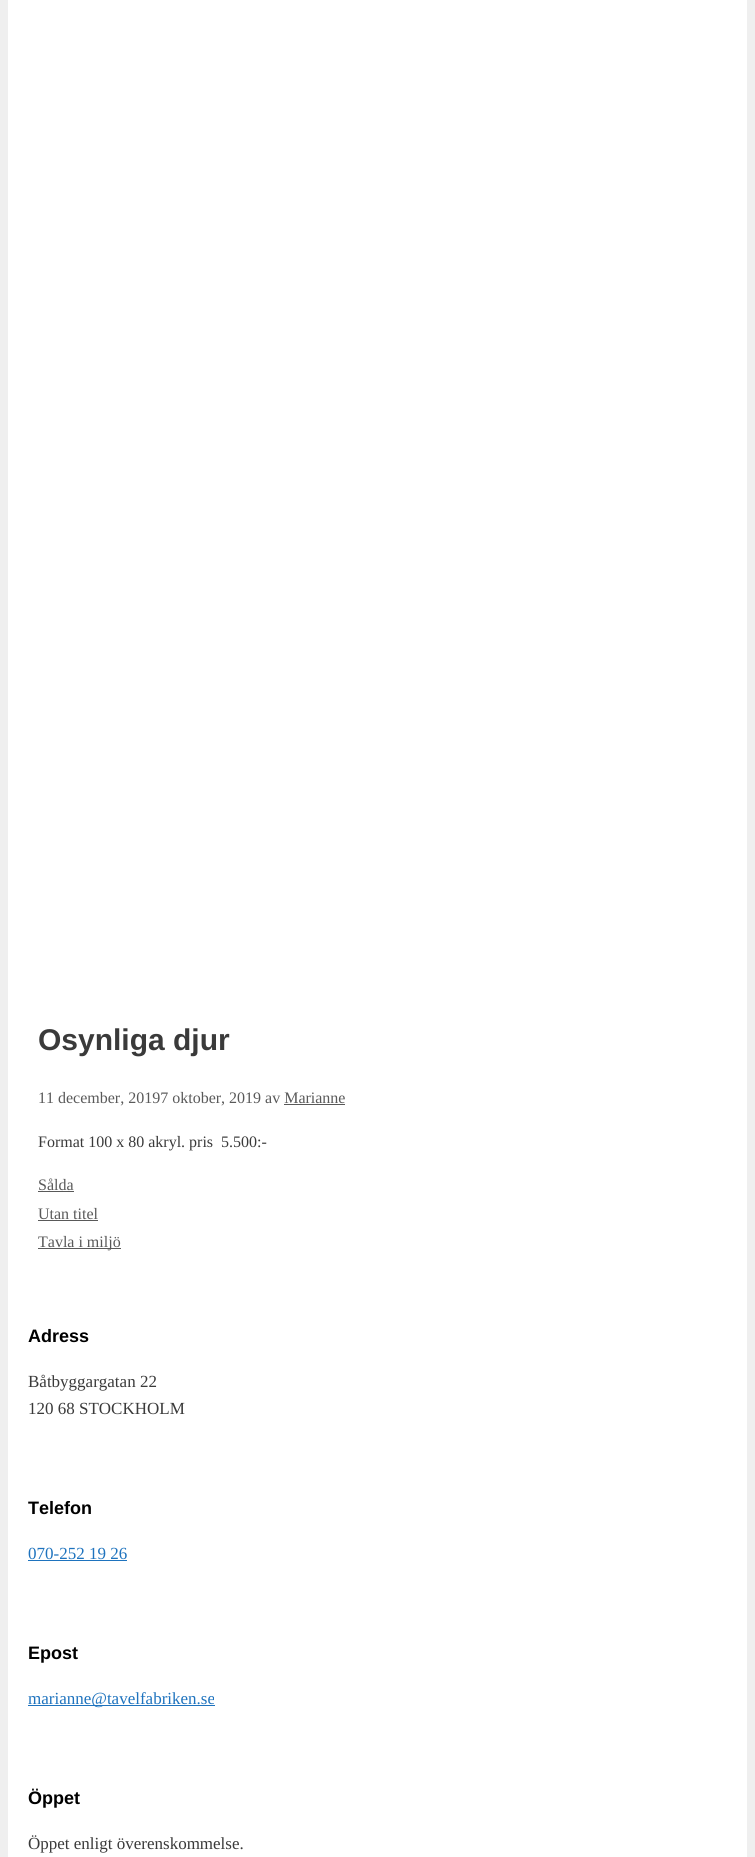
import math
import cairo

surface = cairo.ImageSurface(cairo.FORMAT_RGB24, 755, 1857)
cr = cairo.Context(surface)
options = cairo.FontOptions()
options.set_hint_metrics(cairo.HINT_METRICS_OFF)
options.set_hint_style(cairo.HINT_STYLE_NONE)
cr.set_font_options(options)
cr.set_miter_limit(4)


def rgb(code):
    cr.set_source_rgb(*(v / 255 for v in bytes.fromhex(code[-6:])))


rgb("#efefef")
cr.paint()
for x, y, w, h, color in [
    (8, 0, 739, 1857, "#ffffff"),
    (284, 1104, 61, 1, "#595959"),
    (38, 1191, 36, 1, "#595959"),
    (38, 1220, 60, 1, "#595959"),
    (38, 1248, 83, 1, "#595959"),
    (28, 1560, 99, 1, "#1e73be"),
    (28, 1705, 187, 1, "#1e73be"),
]:
    rgb(color)
    cr.rectangle(x, y, w, h)
    cr.fill()
cr.select_font_face("Liberation Sans", cairo.FONT_SLANT_NORMAL, cairo.FONT_WEIGHT_BOLD)
cr.set_font_size(30)
rgb("#3a3a3a")
cr.move_to(38, 1050)
cr.show_text("Osynliga djur")
cr.select_font_face("Liberation Serif")
cr.set_font_size(16)
rgb("#595959")
cr.move_to(38, 1103)
cr.show_text("11 december, 20197 oktober, 2019 av Marianne")
rgb("#3a3a3a")
cr.move_to(38, 1147)
cr.show_text("Format 100 x 80 akryl. pris  5.500:-")
rgb("#595959")
for x, y, s in [
    (38, 1190, "Sålda"),
    (38, 1219, "Utan titel"),
    (38, 1247, "Tavla i miljö"),
]:
    cr.move_to(x, y)
    cr.show_text(s)
cr.select_font_face("Liberation Sans", cairo.FONT_SLANT_NORMAL, cairo.FONT_WEIGHT_BOLD)
cr.set_font_size(18)
rgb("#000000")
cr.move_to(28, 1342)
cr.show_text("Adress")
cr.select_font_face("Liberation Serif")
cr.set_font_size(17)
rgb("#3a3a3a")
cr.move_to(28, 1387)
cr.show_text("Båtbyggargatan 22")
cr.move_to(28, 1414)
cr.show_text("120 68 STOCKHOLM")
cr.select_font_face("Liberation Sans", cairo.FONT_SLANT_NORMAL, cairo.FONT_WEIGHT_BOLD)
cr.set_font_size(18)
rgb("#000000")
cr.move_to(28, 1514)
cr.show_text("Telefon")
cr.select_font_face("Liberation Serif")
cr.set_font_size(17)
rgb("#1e73be")
cr.move_to(28, 1559)
cr.show_text("070-252 19 26")
cr.select_font_face("Liberation Sans", cairo.FONT_SLANT_NORMAL, cairo.FONT_WEIGHT_BOLD)
cr.set_font_size(18)
rgb("#000000")
cr.move_to(28, 1659)
cr.show_text("Epost")
cr.select_font_face("Liberation Serif")
cr.set_font_size(17)
rgb("#1e73be")
cr.move_to(28, 1704)
cr.show_text("marianne@tavelfabriken.se")
cr.select_font_face("Liberation Sans", cairo.FONT_SLANT_NORMAL, cairo.FONT_WEIGHT_BOLD)
cr.set_font_size(18)
rgb("#000000")
cr.move_to(28, 1804)
cr.show_text("Öppet")
cr.select_font_face("Liberation Serif")
cr.set_font_size(17)
rgb("#3a3a3a")
cr.move_to(28, 1849)
cr.show_text("Öppet enligt överenskommelse.")
surface.write_to_png("page.png")
